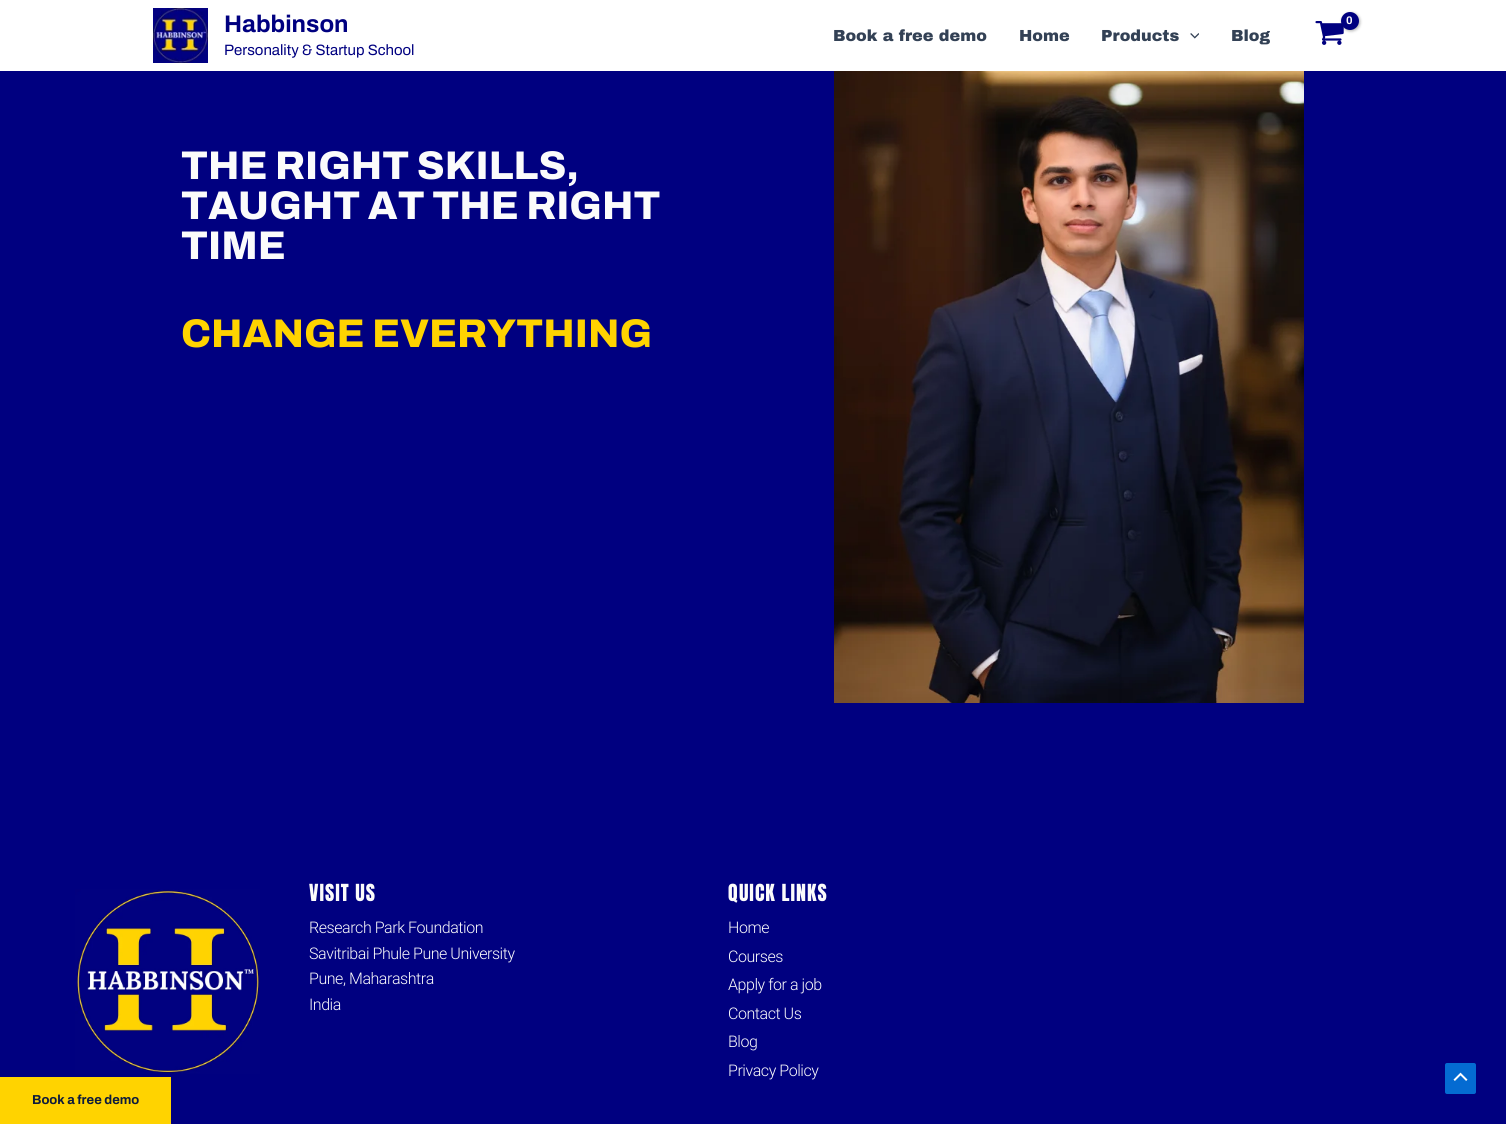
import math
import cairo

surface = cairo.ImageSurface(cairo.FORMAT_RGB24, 1506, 1124)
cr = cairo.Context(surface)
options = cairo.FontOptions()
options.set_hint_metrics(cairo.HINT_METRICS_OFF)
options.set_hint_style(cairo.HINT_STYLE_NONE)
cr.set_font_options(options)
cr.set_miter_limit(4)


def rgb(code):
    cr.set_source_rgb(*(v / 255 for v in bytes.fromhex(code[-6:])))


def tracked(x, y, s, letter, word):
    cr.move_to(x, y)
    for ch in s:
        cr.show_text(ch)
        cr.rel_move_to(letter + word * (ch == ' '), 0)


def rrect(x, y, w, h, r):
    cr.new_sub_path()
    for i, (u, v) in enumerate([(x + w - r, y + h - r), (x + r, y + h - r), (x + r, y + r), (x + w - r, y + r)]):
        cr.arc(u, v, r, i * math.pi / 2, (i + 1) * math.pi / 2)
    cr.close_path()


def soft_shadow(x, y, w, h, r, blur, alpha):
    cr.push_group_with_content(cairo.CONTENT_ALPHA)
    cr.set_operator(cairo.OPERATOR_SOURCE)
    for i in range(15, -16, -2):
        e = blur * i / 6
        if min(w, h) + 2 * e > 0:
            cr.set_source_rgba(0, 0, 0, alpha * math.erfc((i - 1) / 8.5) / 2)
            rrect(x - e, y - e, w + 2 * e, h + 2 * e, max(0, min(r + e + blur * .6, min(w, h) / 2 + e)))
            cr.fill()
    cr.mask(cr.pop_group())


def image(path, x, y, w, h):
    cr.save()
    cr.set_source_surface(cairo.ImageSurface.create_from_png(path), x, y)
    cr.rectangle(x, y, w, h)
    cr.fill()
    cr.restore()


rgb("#000080")
cr.paint()
rgb("#ffffff")
cr.rectangle(0, 0, 1506, 71)
cr.fill()
image("img/1.png", 153, 8, 55, 55)
image("img/2.png", 1315, 21, 29, 24)
rgb("#000000")
soft_shadow(1342, 13, 18, 18, 9, 1.5, 0.3)
rgb("#000080")
cr.arc(1350, 21, 9, 0, 2 * math.pi)
cr.fill()
image("img/3.png", 1190, 33, 9, 6)
rgb("#ffd300")
cr.rectangle(1, 1078, 169, 45)
cr.fill_preserve()
cr.stroke()
image("img/4.png", 834, 71, 470, 632)
image("img/5.png", 75, 889, 185, 185)
rgb("#046bd2")
rrect(1445, 1063, 31, 31, 2)
cr.fill()
image("img/6.png", 1453, 1072, 15, 9)
cr.select_font_face("Archivo", cairo.FONT_SLANT_NORMAL, cairo.FONT_WEIGHT_BOLD)
cr.set_font_size(24)
rgb("#000080")
cr.move_to(224, 32)
cr.show_text("Habbinson")
cr.select_font_face("Archivo")
cr.set_font_size(15)
cr.move_to(224, 55)
cr.show_text("Personality & Startup School")
cr.select_font_face("Archivo", cairo.FONT_SLANT_NORMAL, cairo.FONT_WEIGHT_BOLD)
cr.set_font_size(11)
rgb("#fbfbfb")
cr.move_to(1346, 24)
cr.show_text("0")
cr.select_font_face("Archivo Black Black")
cr.set_font_size(16)
rgb("#334155")
for x, y, s in [
    (833, 41, "Book a free demo"),
    (1019, 41, "Home"),
    (1101, 41, "Products"),
    (1231, 41, "Blog"),
]:
    cr.move_to(x, y)
    cr.show_text(s)
cr.select_font_face("Archivo ExtraBold")
cr.set_font_size(40)
rgb("#fbfbfb")
for x, y, s in [
    (181, 179, "THE RIGHT SKILLS,"),
    (181, 219, "TAUGHT AT THE RIGHT"),
    (181, 259, "TIME"),
]:
    cr.move_to(x, y)
    cr.show_text(s)
rgb("#ffd300")
cr.move_to(181, 347)
cr.show_text("CHANGE EVERYTHING")
cr.select_font_face("Archivo", cairo.FONT_SLANT_NORMAL, cairo.FONT_WEIGHT_BOLD)
cr.set_font_size(13)
rgb("#0e1b3c")
cr.move_to(32, 1104)
cr.show_text("Book a free demo")
cr.select_font_face("Anton")
cr.set_font_size(20)
rgb("#fbfbfb")
tracked(309, 901, "VISIT US", 1, 0)
cr.select_font_face("Roboto Light")
cr.set_font_size(16)
for x, y, s in [
    (309, 933, "Research Park Foundation"),
    (309, 959, "Savitribai Phule Pune University"),
    (309, 984, "Pune, Maharashtra"),
    (309, 1010, "India"),
]:
    tracked(x, y, s, -0.45, 0)
cr.select_font_face("Anton")
cr.set_font_size(20)
tracked(728, 901, "QUICK LINKS", 1, 0)
cr.select_font_face("Roboto Light")
cr.set_font_size(16)
for x, y, s in [
    (728, 933, "Home"),
    (728, 962, "Courses"),
    (728, 990, "Apply for a job"),
    (728, 1019, "Contact Us"),
    (728, 1047, "Blog"),
    (728, 1076, "Privacy Policy"),
]:
    tracked(x, y, s, -0.45, 0)
surface.write_to_png("page.png")
